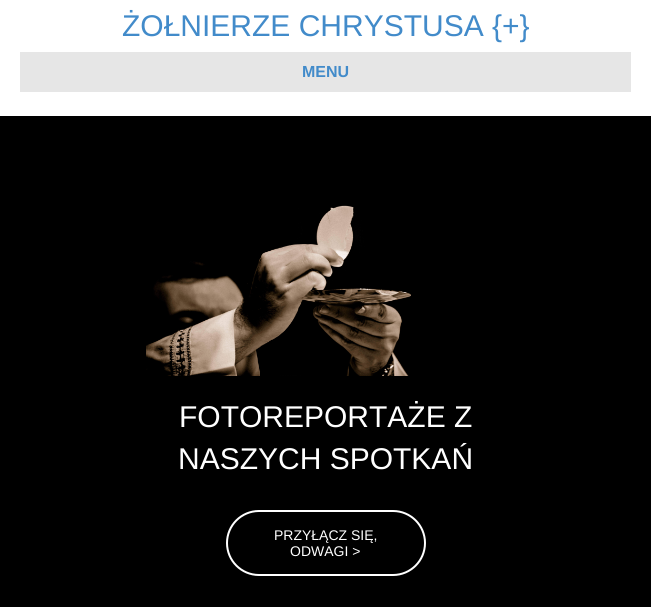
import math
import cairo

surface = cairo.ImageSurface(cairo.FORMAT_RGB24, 651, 607)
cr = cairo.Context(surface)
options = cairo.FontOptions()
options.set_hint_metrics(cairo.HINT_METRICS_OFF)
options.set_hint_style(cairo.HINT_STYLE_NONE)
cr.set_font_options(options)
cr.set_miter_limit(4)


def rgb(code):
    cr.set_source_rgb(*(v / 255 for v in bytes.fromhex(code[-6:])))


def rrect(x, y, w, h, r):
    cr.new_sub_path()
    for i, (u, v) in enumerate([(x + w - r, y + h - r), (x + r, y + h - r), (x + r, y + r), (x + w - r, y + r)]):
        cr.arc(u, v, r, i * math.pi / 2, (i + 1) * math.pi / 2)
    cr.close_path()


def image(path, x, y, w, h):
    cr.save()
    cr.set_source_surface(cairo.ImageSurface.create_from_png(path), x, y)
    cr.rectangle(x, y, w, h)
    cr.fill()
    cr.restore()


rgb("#ffffff")
cr.paint()
rgb("#e6e6e6")
cr.rectangle(20, 52, 611, 40)
cr.fill()
rgb("#000000")
cr.rectangle(0, 116, 651, 491)
cr.fill()
image("img/1.png", 146, 205, 265, 171)
rrect(227, 511, 198, 64, 32)
rgb("#ffffff")
cr.stroke()
cr.select_font_face("Liberation Sans")
cr.set_font_size(30)
rgb("#428bca")
cr.move_to(122, 36)
cr.show_text("ŻOŁNIERZE CHRYSTUSA {+}")
cr.select_font_face("Liberation Sans", cairo.FONT_SLANT_NORMAL, cairo.FONT_WEIGHT_BOLD)
cr.set_font_size(16)
cr.move_to(302, 77)
cr.show_text("MENU")
cr.select_font_face("Liberation Sans")
cr.set_font_size(30)
rgb("#ffffff")
cr.move_to(179, 427)
cr.show_text("FOTOREPORTAŻE Z")
cr.move_to(178, 469)
cr.show_text("NASZYCH SPOTKAŃ")
cr.set_font_size(14)
cr.move_to(274, 540)
cr.show_text("PRZYŁĄCZ SIĘ,")
cr.move_to(290, 556)
cr.show_text("ODWAGI >")
surface.write_to_png("page.png")
